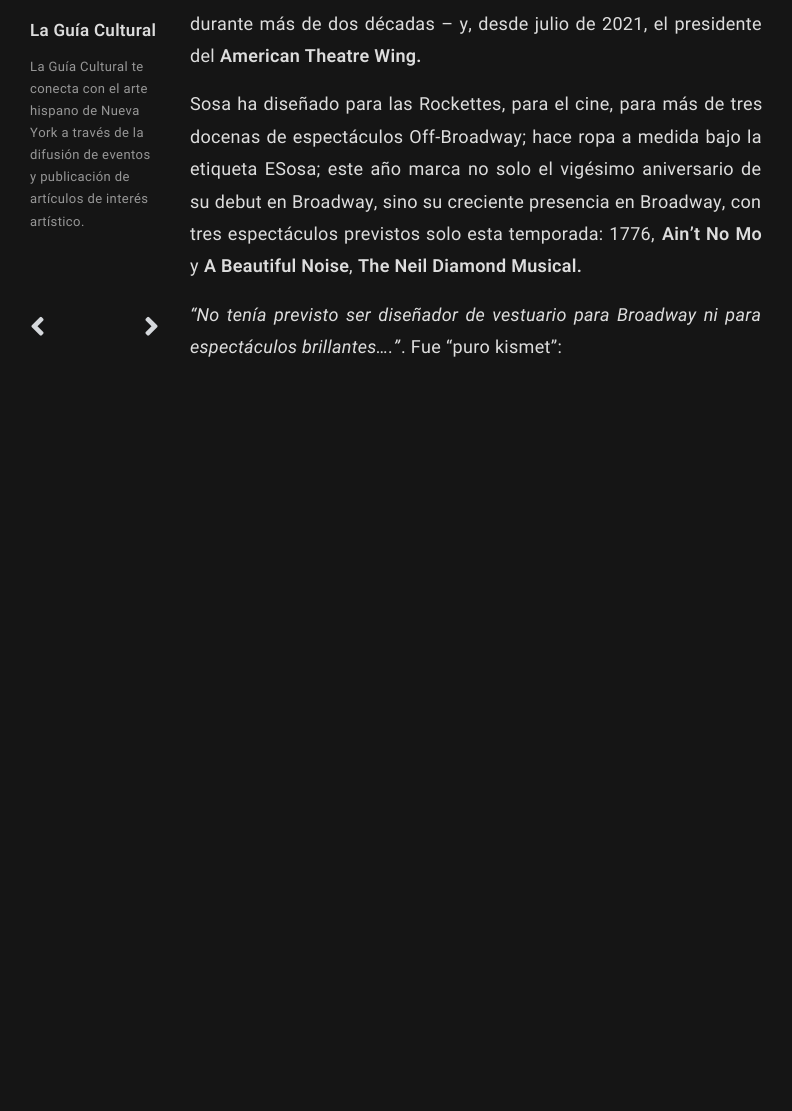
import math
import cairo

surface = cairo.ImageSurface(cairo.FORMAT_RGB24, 792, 1111)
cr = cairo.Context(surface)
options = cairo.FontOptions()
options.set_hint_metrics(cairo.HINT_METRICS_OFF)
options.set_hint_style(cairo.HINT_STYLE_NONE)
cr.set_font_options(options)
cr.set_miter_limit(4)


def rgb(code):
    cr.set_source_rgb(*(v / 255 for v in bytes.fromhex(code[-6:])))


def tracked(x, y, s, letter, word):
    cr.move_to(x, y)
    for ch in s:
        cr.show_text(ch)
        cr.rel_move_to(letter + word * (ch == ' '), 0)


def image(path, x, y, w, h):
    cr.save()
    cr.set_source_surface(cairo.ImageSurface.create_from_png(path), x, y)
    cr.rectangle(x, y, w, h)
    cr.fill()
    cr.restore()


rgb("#151515")
cr.paint()
image("img/1.png", 31, 316, 13, 20)
image("img/2.png", 145, 316, 13, 20)
cr.select_font_face("Roboto SemiBold")
cr.set_font_size(17)
rgb("#dddddd")
tracked(30, 36, "La Guía Cultural", 0.3, 0)
cr.select_font_face("Roboto")
cr.set_font_size(13)
rgb("#969696")
for x, y, s in [
    (30, 71, "La Guía Cultural te"),
    (30, 93, "conecta con el arte"),
    (30, 115, "hispano de Nueva"),
    (30, 137, "York a través de la"),
    (30, 159, "difusión de eventos"),
    (30, 181, "y publicación de"),
    (30, 203, "artículos de interés"),
    (30, 226, "artístico."),
]:
    tracked(x, y, s, 0.4, 0)
cr.set_font_size(18)
rgb("#dddddd")
tracked(190, 30, "durante más de dos décadas – y, desde julio de 2021, el presidente", 0.3, 1.4)
tracked(190, 62, "del", 0.3, 0)
cr.select_font_face("Roboto SemiBold")
tracked(220, 62, "American Theatre Wing.", 0.3, 0)
cr.select_font_face("Roboto")
tracked(190, 110, "Sosa ha diseñado para las Rockettes, para el cine, para más de tres", 0.3, 1.25)
tracked(190, 143, "docenas de espectáculos Off-Broadway; hace ropa a medida bajo la", 0.3, 1.25)
tracked(190, 175, "etiqueta ESosa; este año marca no solo el vigésimo aniversario de", 0.3, 2.4)
tracked(190, 208, "su debut en Broadway, sino su creciente presencia en Broadway, con", 0.3, 0.25)
tracked(190, 240, "tres espectáculos previstos solo esta temporada: 1776,", 0.3, 1)
cr.select_font_face("Roboto SemiBold")
tracked(662, 240, "Ain’t No Mo", 0.3, 1)
cr.select_font_face("Roboto")
tracked(190, 272, "y", 0.3, 0)
cr.select_font_face("Roboto SemiBold")
tracked(204, 272, "A Beautiful Noise", 0.3, 0)
cr.select_font_face("Roboto")
tracked(349, 272, ",", 0.3, 0)
cr.select_font_face("Roboto SemiBold")
tracked(358, 272, "The Neil Diamond Musical.", 0.3, 0)
cr.select_font_face("Roboto", cairo.FONT_SLANT_ITALIC)
tracked(190, 321, "“No tenía previsto ser diseñador de vestuario para Broadway ni para", 0.3, 2.5)
tracked(190, 353, "espectáculos brillantes….”", 0.3, 0)
cr.select_font_face("Roboto")
tracked(401, 353, ". Fue “puro kismet”:", 0.3, 0)
surface.write_to_png("page.png")
